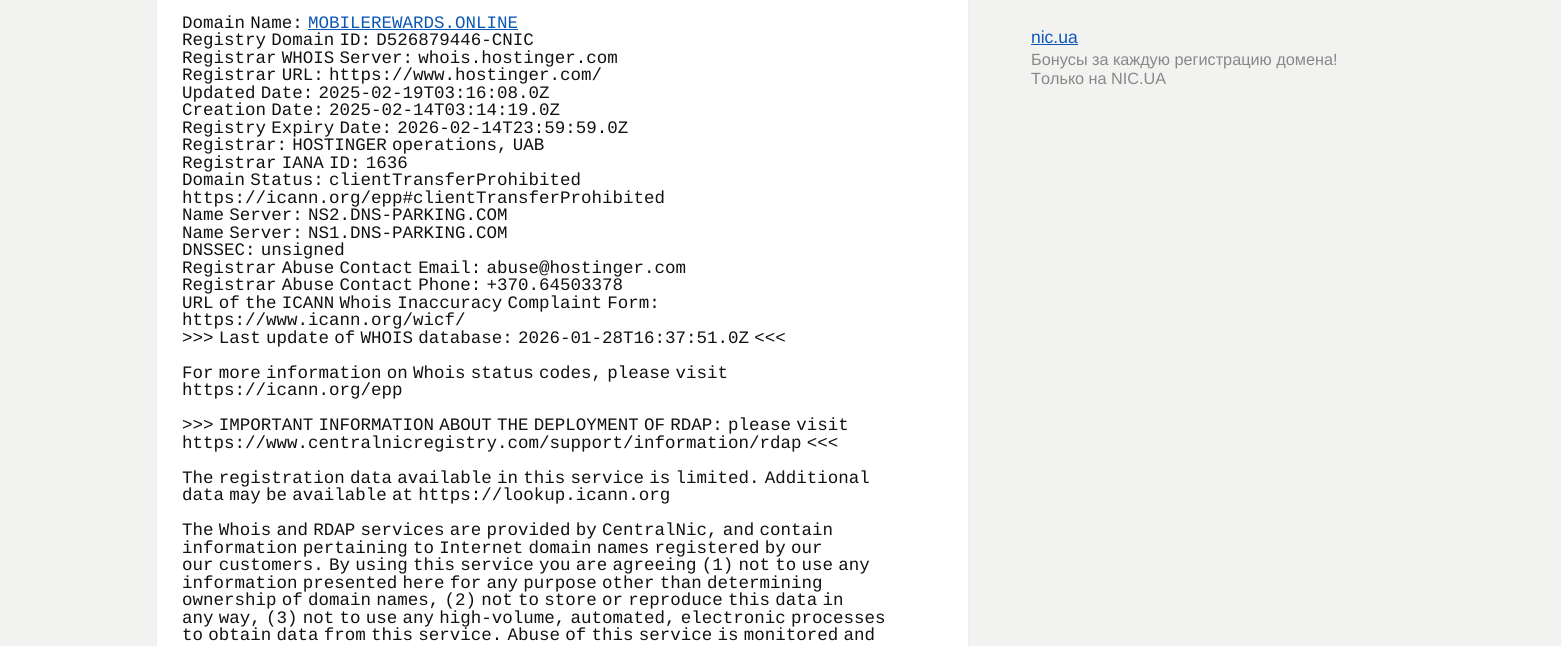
import math
import cairo

surface = cairo.ImageSurface(cairo.FORMAT_RGB24, 1561, 646)
cr = cairo.Context(surface)
options = cairo.FontOptions()
options.set_hint_metrics(cairo.HINT_METRICS_OFF)
options.set_hint_style(cairo.HINT_STYLE_NONE)
cr.set_font_options(options)
cr.set_miter_limit(4)


def rgb(code):
    cr.set_source_rgb(*(v / 255 for v in bytes.fromhex(code[-6:])))


def tracked(x, y, s, letter, word):
    cr.move_to(x, y)
    for ch in s:
        cr.show_text(ch)
        cr.rel_move_to(letter + word * (ch == ' '), 0)


rgb("#f2f2f1")
cr.paint()
rgb("#ffffff")
cr.rectangle(156.5, -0.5, 812, 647)
cr.fill_preserve()
rgb("#ededed")
cr.set_line_width(1)
cr.stroke()
rgb("#0b58b7")
cr.rectangle(308, 29, 210, 1)
cr.fill()
cr.rectangle(1031, 44, 47, 1)
cr.fill()
cr.select_font_face("Liberation Mono")
cr.set_font_size(17.5)
rgb("#111111")
tracked(182, 28, "Domain Name:", 0, -5.25)
rgb("#0b58b7")
cr.move_to(308, 28)
cr.show_text("MOBILEREWARDS.ONLINE")
rgb("#111111")
for x, y, s in [
    (182, 45, "Registry Domain ID: D526879446-CNIC"),
    (182, 63, "Registrar WHOIS Server: whois.hostinger.com"),
    (182, 80, "Registrar URL: https://www.hostinger.com/"),
    (182, 98, "Updated Date: 2025-02-19T03:16:08.0Z"),
    (182, 115, "Creation Date: 2025-02-14T03:14:19.0Z"),
    (182, 133, "Registry Expiry Date: 2026-02-14T23:59:59.0Z"),
    (182, 150, "Registrar: HOSTINGER operations, UAB"),
    (182, 168, "Registrar IANA ID: 1636"),
    (182, 185, "Domain Status: clientTransferProhibited"),
]:
    tracked(x, y, s, 0, -5.25)
cr.move_to(182, 203)
cr.show_text("https://icann.org/epp#clientTransferProhibited")
for x, y, s in [
    (182, 220, "Name Server: NS2.DNS-PARKING.COM"),
    (182, 238, "Name Server: NS1.DNS-PARKING.COM"),
    (182, 255, "DNSSEC: unsigned"),
    (182, 273, "Registrar Abuse Contact Email: abuse@hostinger.com"),
    (182, 290, "Registrar Abuse Contact Phone: +370.64503378"),
    (182, 308, "URL of the ICANN Whois Inaccuracy Complaint Form:"),
]:
    tracked(x, y, s, 0, -5.25)
cr.move_to(182, 325)
cr.show_text("https://www.icann.org/wicf/")
tracked(182, 343, ">>> Last update of WHOIS database: 2026-01-28T16:37:51.0Z <<<", 0, -5.25)
tracked(182, 378, "For more information on Whois status codes, please visit", 0, -5.25)
cr.move_to(182, 395)
cr.show_text("https://icann.org/epp")
for x, y, s in [
    (182, 430, ">>> IMPORTANT INFORMATION ABOUT THE DEPLOYMENT OF RDAP: please visit"),
    (182, 448, "https://www.centralnicregistry.com/support/information/rdap <<<"),
    (182, 483, "The registration data available in this service is limited. Additional"),
    (182, 500, "data may be available at https://lookup.icann.org"),
    (182, 535, "The Whois and RDAP services are provided by CentralNic, and contain"),
    (182, 553, "information pertaining to Internet domain names registered by our"),
    (182, 570, "our customers. By using this service you are agreeing (1) not to use any"),
    (182, 588, "information presented here for any purpose other than determining"),
    (182, 605, "ownership of domain names, (2) not to store or reproduce this data in"),
    (182, 623, "any way, (3) not to use any high-volume, automated, electronic processes"),
    (182, 640, "to obtain data from this service. Abuse of this service is monitored and"),
]:
    tracked(x, y, s, 0, -5.25)
cr.select_font_face("Liberation Sans")
rgb("#0b58b7")
cr.move_to(1031, 43)
cr.show_text("nic.ua")
cr.set_font_size(16.25)
rgb("#888888")
cr.move_to(1031, 65)
cr.show_text("Бонусы за каждую регистрацию домена!")
cr.move_to(1031, 84)
cr.show_text("Только на NIC.UA")
surface.write_to_png("page.png")
